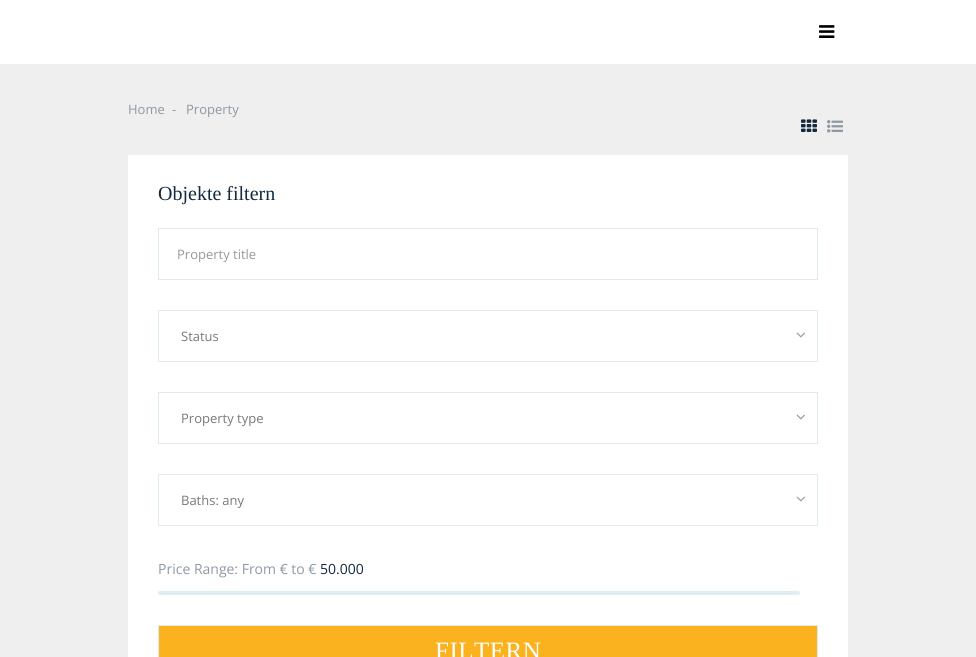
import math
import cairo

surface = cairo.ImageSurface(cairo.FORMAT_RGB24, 976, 657)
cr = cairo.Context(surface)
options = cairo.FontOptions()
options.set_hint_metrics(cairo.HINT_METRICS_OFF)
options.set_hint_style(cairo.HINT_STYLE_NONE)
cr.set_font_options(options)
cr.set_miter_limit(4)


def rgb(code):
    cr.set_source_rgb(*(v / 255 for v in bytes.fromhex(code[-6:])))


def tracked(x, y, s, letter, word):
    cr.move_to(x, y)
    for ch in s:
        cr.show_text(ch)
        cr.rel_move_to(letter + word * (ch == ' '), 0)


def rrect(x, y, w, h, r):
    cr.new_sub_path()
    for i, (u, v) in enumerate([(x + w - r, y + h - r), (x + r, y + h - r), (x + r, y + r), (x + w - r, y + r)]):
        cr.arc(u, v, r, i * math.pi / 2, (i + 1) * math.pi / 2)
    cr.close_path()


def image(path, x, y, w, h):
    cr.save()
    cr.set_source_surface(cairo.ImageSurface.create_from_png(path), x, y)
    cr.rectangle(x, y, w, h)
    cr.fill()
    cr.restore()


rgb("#efefef")
cr.paint()
rgb("#ffffff")
cr.rectangle(0, 0, 976, 64)
cr.fill()
image("img/1.png", 819, 25, 16, 13)
image("img/2.png", 801, 119, 16, 13)
image("img/3.png", 827, 120, 16, 13)
cr.rectangle(128, 155, 720, 502)
cr.fill()
cr.rectangle(158.5, 228.5, 659, 51)
rgb("#dfebee")
cr.set_line_width(1)
cr.stroke()
cr.rectangle(158.5, 310.5, 659, 51)
cr.stroke()
image("img/4.png", 796, 332, 9, 6)
cr.rectangle(158.5, 392.5, 659, 51)
cr.stroke()
image("img/4.png", 796, 414, 9, 6)
cr.rectangle(158.5, 474.5, 659, 51)
cr.stroke()
image("img/4.png", 796, 496, 9, 6)
rgb("#dfeef1")
rrect(158, 591, 642, 4, 2)
cr.fill()
cr.rectangle(158.5, 625.5, 659, 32)
rgb("#dfebee")
cr.stroke()
rgb("#fab31e")
cr.rectangle(159, 626, 658, 31)
cr.fill()
cr.select_font_face("Open Sans")
cr.set_font_size(13)
rgb("#8e99a3")
for x, y, s in [
    (128, 114, "Home"),
    (172, 114, "-"),
    (186, 114, "Property"),
]:
    cr.move_to(x, y)
    cr.show_text(s)
cr.select_font_face("Liberation Serif")
cr.set_font_size(20)
rgb("#13293d")
cr.move_to(158, 200)
cr.show_text("Objekte filtern")
cr.select_font_face("Open Sans")
cr.set_font_size(13)
rgb("#999999")
cr.move_to(177, 259)
cr.show_text("Property title")
rgb("#797979")
for x, y, s in [
    (181, 341, "Status"),
    (181, 423, "Property type"),
    (181, 505, "Baths: any"),
]:
    cr.move_to(x, y)
    cr.show_text(s)
cr.set_font_size(14)
rgb("#8e99a3")
cr.move_to(158, 574)
cr.show_text("Price Range: From € to €")
rgb("#13293d")
cr.move_to(320, 574)
cr.show_text("50.000")
cr.select_font_face("Liberation Serif")
cr.set_font_size(25)
rgb("#ffffff")
tracked(435, 659, "FILTERN", 0.5, 0)
surface.write_to_png("page.png")
